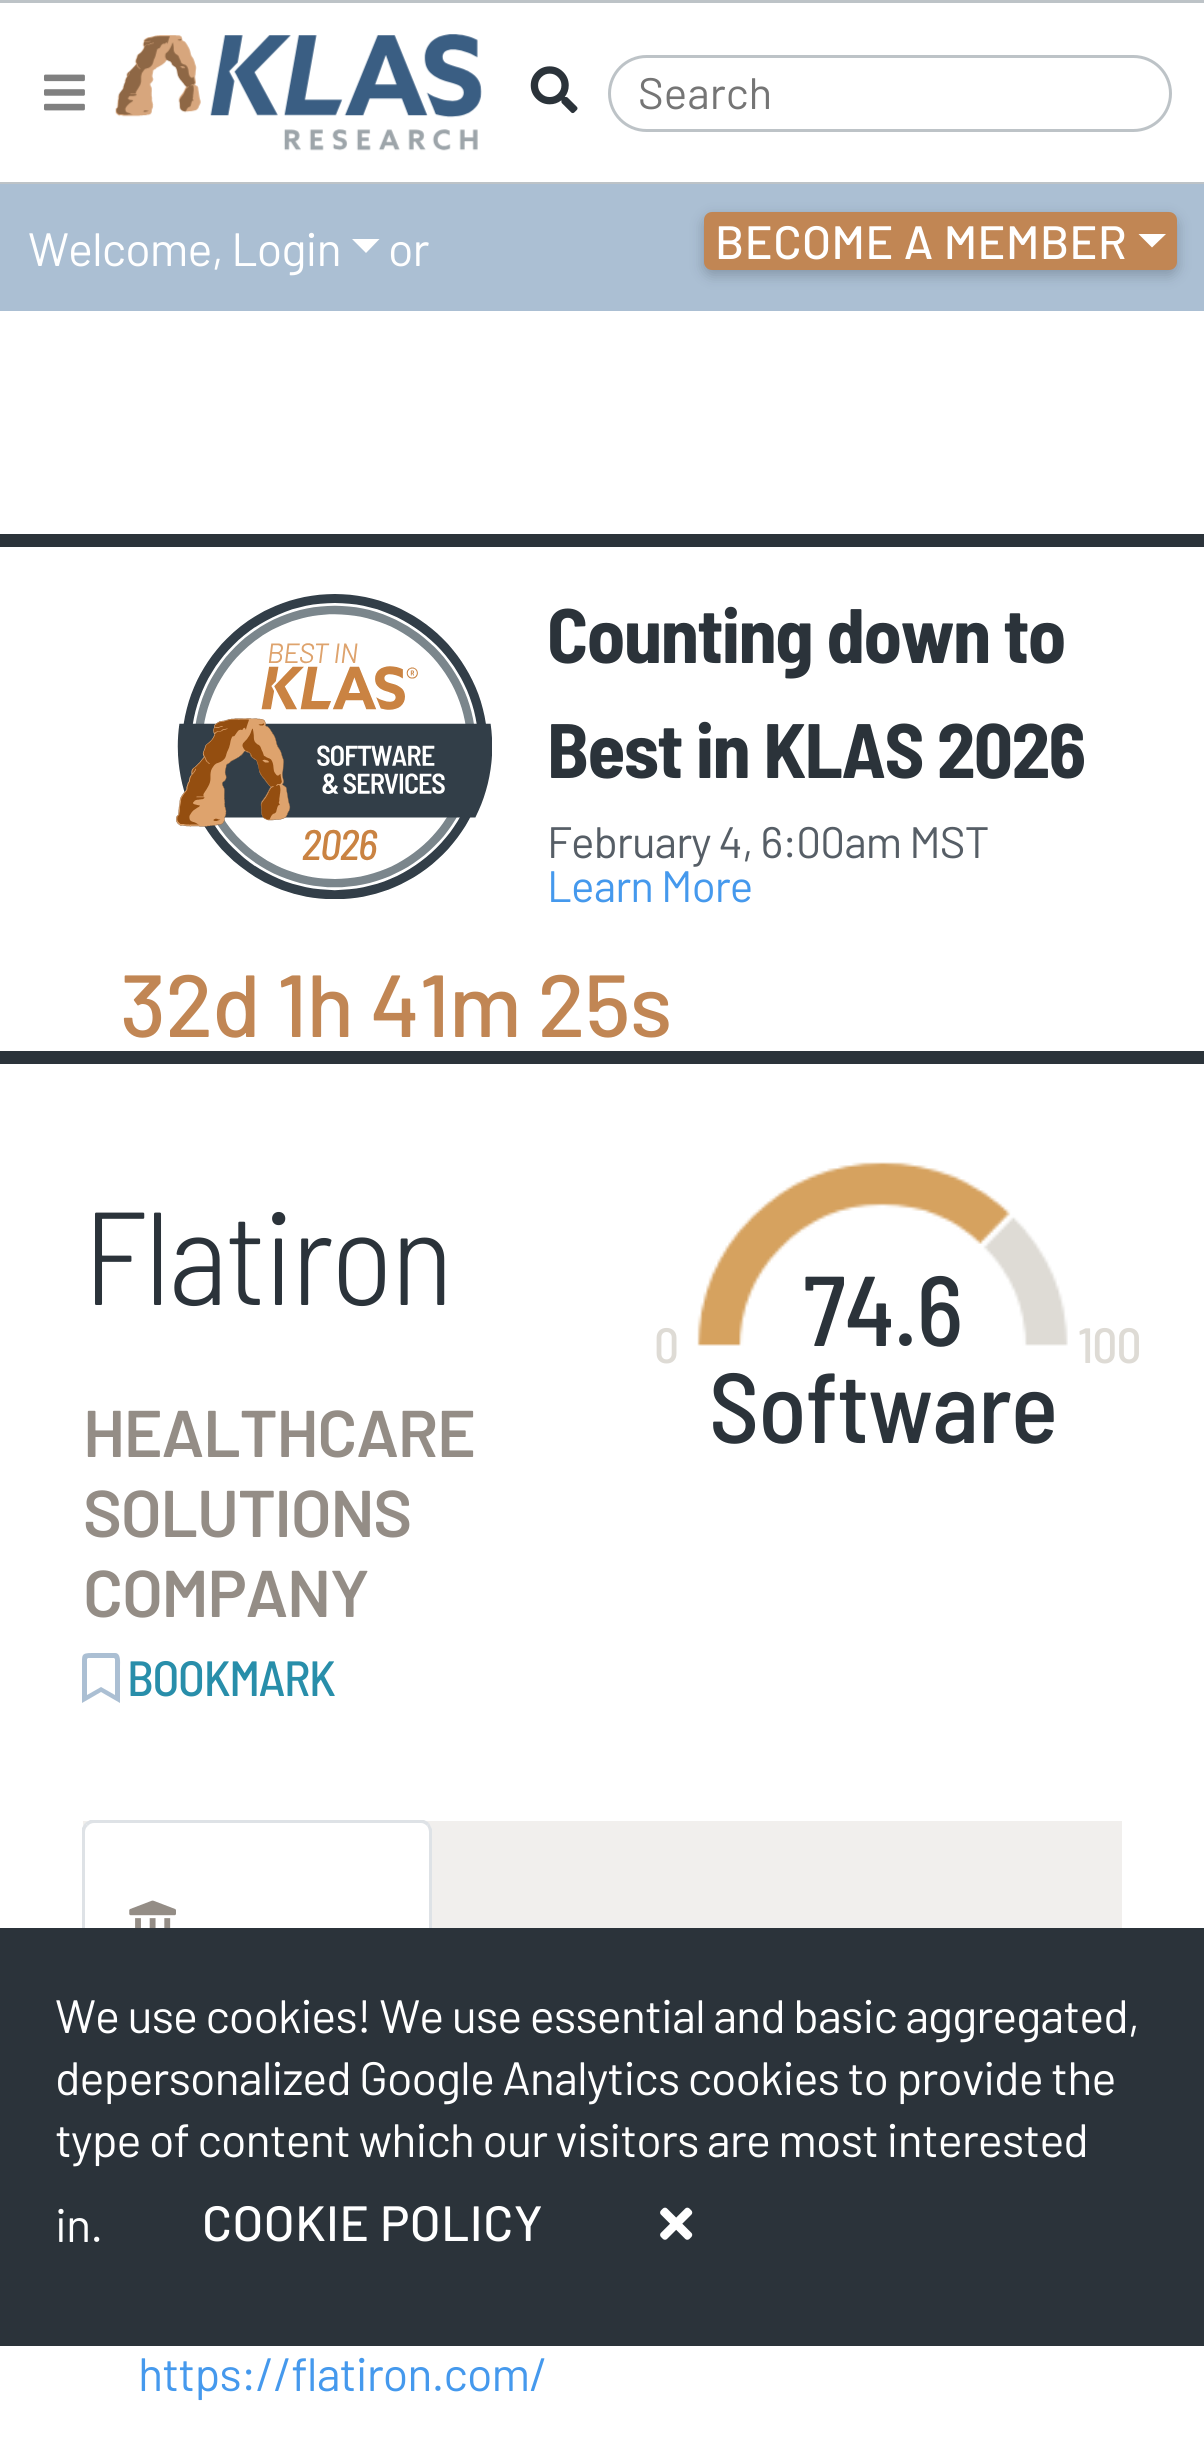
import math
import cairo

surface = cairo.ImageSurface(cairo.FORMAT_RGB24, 1204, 2454)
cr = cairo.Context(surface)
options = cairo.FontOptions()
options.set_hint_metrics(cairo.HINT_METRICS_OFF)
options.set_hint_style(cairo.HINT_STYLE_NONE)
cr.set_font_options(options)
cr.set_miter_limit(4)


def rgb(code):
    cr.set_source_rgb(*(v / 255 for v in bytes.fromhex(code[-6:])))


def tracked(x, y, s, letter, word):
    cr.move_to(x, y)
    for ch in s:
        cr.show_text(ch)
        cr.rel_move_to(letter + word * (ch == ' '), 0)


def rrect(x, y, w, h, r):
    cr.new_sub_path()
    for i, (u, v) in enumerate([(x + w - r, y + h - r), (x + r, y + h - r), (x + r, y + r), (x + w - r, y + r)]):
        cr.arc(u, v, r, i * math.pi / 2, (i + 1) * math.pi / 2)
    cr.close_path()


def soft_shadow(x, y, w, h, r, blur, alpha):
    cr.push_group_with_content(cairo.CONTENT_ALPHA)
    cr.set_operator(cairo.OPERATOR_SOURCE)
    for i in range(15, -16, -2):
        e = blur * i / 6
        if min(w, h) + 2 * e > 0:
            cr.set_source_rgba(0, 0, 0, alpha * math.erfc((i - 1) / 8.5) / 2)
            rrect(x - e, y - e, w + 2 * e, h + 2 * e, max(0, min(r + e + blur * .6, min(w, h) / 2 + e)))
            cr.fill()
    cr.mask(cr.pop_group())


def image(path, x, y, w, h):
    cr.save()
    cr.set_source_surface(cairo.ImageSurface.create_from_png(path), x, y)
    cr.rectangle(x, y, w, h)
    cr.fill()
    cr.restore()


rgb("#ffffff")
cr.paint()
rgb("#bdc3c7")
cr.rectangle(0, 0, 1204, 3)
cr.fill()
cr.rectangle(0, 182, 1204, 2)
cr.fill()
image("img/1.png", 44, 74, 41, 37)
image("img/2.png", 115, 34, 367, 117)
image("img/3.png", 530, 66, 48, 48)
rrect(609.5, 56.5, 561, 74, 37)
cr.set_line_width(3)
cr.stroke()
rgb("#abbfd3")
cr.rectangle(0, 184, 1204, 127)
cr.fill()
rgb("#ffffff")
cr.new_path()
cr.move_to(352, 239)
cr.line_to(379.5, 239)
cr.line_to(366, 253)
cr.close_path()
cr.fill()
rgb("#101820")
soft_shadow(704, 217, 473, 58, 8, 7, 0.25)
rgb("#c18654")
rrect(704, 212, 473, 58, 8)
cr.fill()
rgb("#ffffff")
cr.new_path()
cr.move_to(1138.5, 234)
cr.line_to(1166, 234)
cr.line_to(1152, 247.5)
cr.close_path()
cr.fill()
rgb("#2b333a")
cr.rectangle(0, 534, 1204, 13)
cr.fill()
image("img/4.png", 176, 594, 316, 305)
cr.rectangle(0, 1051, 1204, 13)
cr.fill()
rgb("#abbfd3")
cr.new_path()
cr.move_to(115, 1653)
cr.curve_to(121, 1653, 120, 1662, 120, 1666)
cr.line_to(120, 1703)
cr.line_to(101, 1692)
cr.line_to(82, 1703)
cr.line_to(82, 1666)
cr.curve_to(82, 1655, 81, 1653, 92, 1653)
cr.close_path()
cr.move_to(115, 1695)
cr.line_to(115, 1659)
cr.line_to(114, 1658)
cr.line_to(88, 1658)
cr.line_to(87, 1659)
cr.line_to(87, 1695)
cr.line_to(101, 1687)
cr.close_path()
cr.fill()
image("img/5.png", 697, 1162, 371, 184)
rgb("#f1efed")
cr.rectangle(83, 1821, 1039, 107)
cr.fill()
rgb("#ffffff")
cr.new_path()
cr.move_to(94, 1821)
cr.line_to(421, 1821)
cr.curve_to(427, 1821, 432, 1826, 432, 1832)
cr.line_to(432, 2027)
cr.line_to(83, 2027)
cr.line_to(83, 1832)
cr.curve_to(83, 1826, 88, 1821, 94, 1821)
cr.close_path()
cr.fill()
rgb("#dee2e6")
cr.new_path()
cr.move_to(94, 1823)
cr.curve_to(92, 1823, 89, 1824, 88, 1826)
cr.line_to(85, 1823)
cr.curve_to(87, 1822, 88, 1821, 90, 1820)
cr.line_to(424, 1820)
cr.curve_to(426, 1821, 428, 1822, 429, 1823)
cr.line_to(427, 1826)
cr.curve_to(425, 1824, 423, 1823, 421, 1823)
cr.close_path()
cr.fill()
cr.new_path()
cr.move_to(429, 1823)
cr.curve_to(430, 1825, 431, 1827, 432, 1829)
cr.line_to(432, 2027)
cr.line_to(429, 2024)
cr.line_to(429, 1832)
cr.curve_to(429, 1830, 428, 1827, 427, 1826)
cr.close_path()
cr.fill()
cr.new_path()
cr.move_to(82, 2027)
cr.line_to(82, 1828)
cr.curve_to(83, 1826, 84, 1825, 85, 1823)
cr.line_to(88, 1826)
cr.curve_to(86, 1827, 85, 1830, 85, 1832)
cr.line_to(85, 2024)
cr.close_path()
cr.fill()
image("img/6.png", 129, 1900, 47, 28)
rgb("#2b333a")
cr.rectangle(0, 1928, 1204, 418)
cr.fill()
image("img/7.png", 660, 2207, 33, 33)
cr.select_font_face("Barlow")
cr.set_font_size(44)
rgb("#757575")
cr.move_to(638, 109)
cr.show_text("Search")
cr.set_font_size(46.75)
rgb("#ffffff")
tracked(28, 266, "Welcome, Login", -0.95, 0)
tracked(388, 266, "or", -0.95, 0)
cr.select_font_face("Barlow Medium")
tracked(715, 259, "BECOME A MEMBER", 0.5, 0)
cr.select_font_face("Barlow Semi Condensed", cairo.FONT_SLANT_NORMAL, cairo.FONT_WEIGHT_BOLD)
cr.set_font_size(77)
rgb("#2b333a")
tracked(547, 663, "Counting down to", -1.5, 0)
tracked(547, 778, "Best in KLAS 2026", -1.5, 0)
cr.select_font_face("Barlow")
cr.set_font_size(44)
rgb("#565e66")
tracked(547, 858, "February 4, 6:00am MST", -0.9, 0)
rgb("#4599ed")
tracked(547, 902, "Learn More", -0.9, 0)
cr.select_font_face("Barlow Medium")
cr.set_font_size(88)
rgb("#c18654")
tracked(120, 1037, "32d 1h 41m 25s", -0.95, 0)
cr.select_font_face("Barlow Semi Condensed Light")
cr.set_font_size(132)
rgb("#2b333a")
tracked(83, 1305, "Flatiron", -2.75, 0)
cr.select_font_face("Barlow SemiBold")
cr.set_font_size(66)
rgb("#948d86")
for x, y, s in [
    (83, 1457, "HEALTHCARE"),
    (83, 1537, "SOLUTIONS"),
    (83, 1617, "COMPANY"),
]:
    tracked(x, y, s, -1.25, 0)
cr.select_font_face("Barlow Semi Condensed Medium")
cr.set_font_size(49.5)
rgb("#288eaa")
tracked(127, 1696, "BOOKMARK", -1.25, 0)
rgb("#dedbd5")
tracked(654, 1363, "0", -0.95, 0)
cr.set_font_size(99)
rgb("#2b333a")
tracked(803, 1346, "74.6", -0.95, 0)
cr.set_font_size(49.5)
rgb("#dedbd5")
tracked(1078, 1363, "100", -0.95, 0)
cr.set_font_size(99)
rgb("#2b333a")
tracked(709, 1443, "Software", -0.95, 0)
cr.select_font_face("Barlow")
cr.set_font_size(46.75)
rgb("#4599ed")
tracked(138, 2391, "https://flatiron.com/", -0.95, 0)
rgb("#ffffff")
for x, y, s in [
    (55, 2033, "We use cookies! We use essential and basic aggregated,"),
    (55, 2095, "depersonalized Google Analytics cookies to provide the"),
    (55, 2157, "type of content which our visitors are most interested"),
    (55, 2242, "in."),
]:
    tracked(x, y, s, -0.95, 0)
cr.select_font_face("Barlow Medium")
cr.set_font_size(49.5)
tracked(202, 2241, "COOKIE POLICY", 0.5, 0)
surface.write_to_png("page.png")
